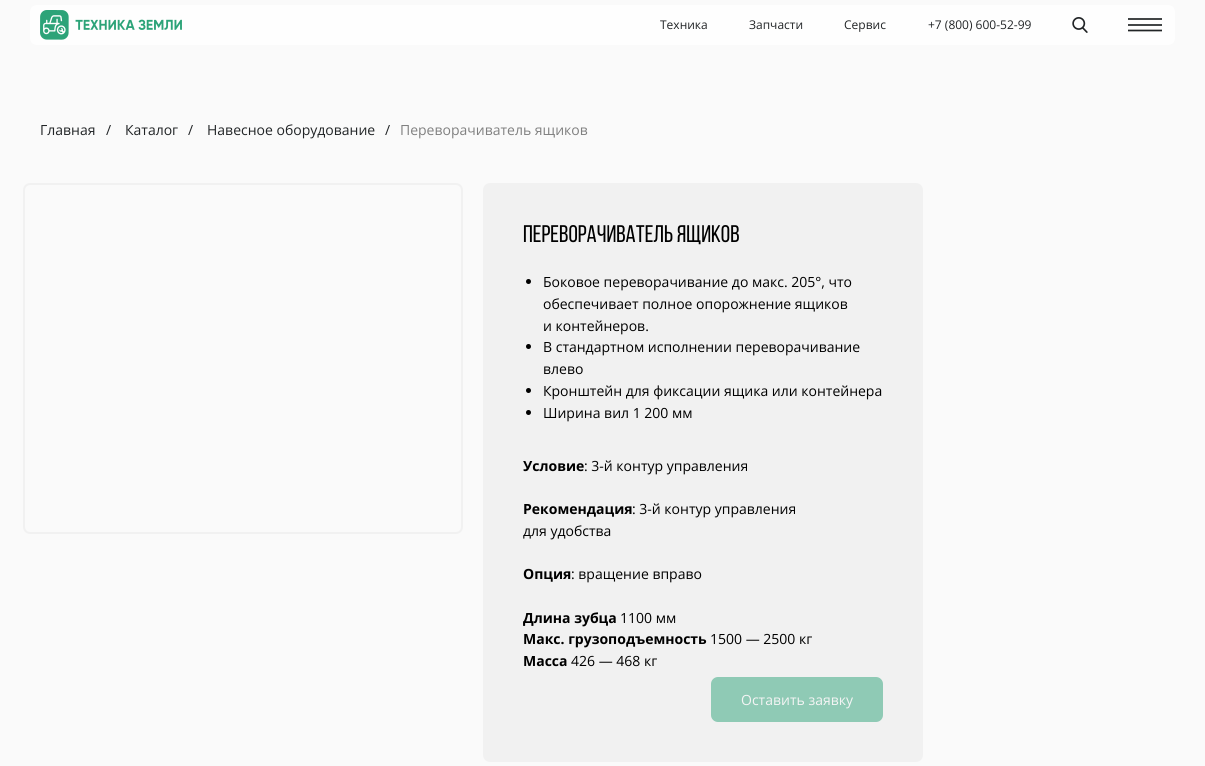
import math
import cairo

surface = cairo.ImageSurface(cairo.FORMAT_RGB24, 1205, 766)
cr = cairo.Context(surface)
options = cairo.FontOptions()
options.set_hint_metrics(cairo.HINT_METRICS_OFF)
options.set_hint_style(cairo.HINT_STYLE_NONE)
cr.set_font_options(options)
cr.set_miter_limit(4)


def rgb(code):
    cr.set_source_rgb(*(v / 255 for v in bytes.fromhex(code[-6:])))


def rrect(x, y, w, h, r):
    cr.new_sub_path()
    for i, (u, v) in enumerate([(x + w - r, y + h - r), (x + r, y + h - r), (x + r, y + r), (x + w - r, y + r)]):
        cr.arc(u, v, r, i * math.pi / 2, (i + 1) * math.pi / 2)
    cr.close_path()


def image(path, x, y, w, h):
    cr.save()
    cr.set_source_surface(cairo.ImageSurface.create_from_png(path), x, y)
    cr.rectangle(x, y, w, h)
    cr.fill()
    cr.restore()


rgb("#fafafa")
cr.paint()
rgb("#fefefe")
rrect(30, 5, 1145, 40, 7)
cr.fill()
image("img/1.png", 40, 10, 142, 30)
image("img/2.png", 1072, 17, 16, 16)
rgb("#424546")
cr.rectangle(1128, 18, 34, 2)
cr.fill()
cr.rectangle(1128, 24, 34, 2)
cr.fill()
cr.new_path()
cr.move_to(1128, 30.5)
cr.line_to(1162, 30.5)
rgb("#212426")
cr.set_line_width(1.7)
cr.stroke()
rrect(24, 184, 438, 349, 6)
rgb("#f1f1f1")
cr.set_line_width(2)
cr.stroke()
rrect(483, 183, 440, 579, 7)
cr.fill()
rgb("#000000")
cr.arc(528.5, 281.5, 2.5, 0, 2 * math.pi)
cr.fill()
cr.arc(528.5, 346.5, 2.5, 0, 2 * math.pi)
cr.fill()
cr.arc(528.5, 390.5, 2.5, 0, 2 * math.pi)
cr.fill()
cr.arc(528.5, 412.5, 2.5, 0, 2 * math.pi)
cr.fill()
rgb("#8fcab5")
rrect(711, 677, 172, 45, 7)
cr.fill()
cr.select_font_face("Open Sans")
cr.set_font_size(12)
rgb("#212426")
for x, y, s in [
    (660, 29, "Техника"),
    (749, 29, "Запчасти"),
    (844, 29, "Сервис"),
    (928, 29, "+7 (800) 600-52-99"),
]:
    cr.move_to(x, y)
    cr.show_text(s)
cr.set_font_size(14)
for x, y, s in [
    (40, 135, "Главная"),
    (106, 135, "/"),
    (125, 135, "Каталог"),
    (188, 135, "/"),
    (207, 135, "Навесное оборудование"),
    (385, 135, "/"),
]:
    cr.move_to(x, y)
    cr.show_text(s)
rgb("#808080")
cr.move_to(400, 135)
cr.show_text("Переворачиватель ящиков")
cr.select_font_face("Bebas Neue")
cr.set_font_size(24)
rgb("#000000")
cr.move_to(523, 242)
cr.show_text("Переворачиватель ящиков")
cr.select_font_face("Open Sans")
cr.set_font_size(14)
for x, y, s in [
    (543, 287, "Боковое переворачивание до макс. 205°, что"),
    (543, 309, "обеспечивает полное опорожнение ящиков"),
    (543, 331, "и контейнеров."),
    (543, 352, "В стандартном исполнении переворачивание"),
    (543, 374, "влево"),
    (543, 396, "Кронштейн для фиксации ящика или контейнера"),
    (543, 418, "Ширина вил 1 200 мм"),
]:
    cr.move_to(x, y)
    cr.show_text(s)
cr.select_font_face("Open Sans", cairo.FONT_SLANT_NORMAL, cairo.FONT_WEIGHT_BOLD)
cr.move_to(523, 471)
cr.show_text("Условие")
cr.select_font_face("Open Sans")
cr.move_to(584, 471)
cr.show_text(": 3-й контур управления")
cr.select_font_face("Open Sans", cairo.FONT_SLANT_NORMAL, cairo.FONT_WEIGHT_BOLD)
cr.move_to(523, 514)
cr.show_text("Рекомендация")
cr.select_font_face("Open Sans")
cr.move_to(632, 514)
cr.show_text(": 3-й контур управления")
cr.move_to(523, 536)
cr.show_text("для удобства")
cr.select_font_face("Open Sans", cairo.FONT_SLANT_NORMAL, cairo.FONT_WEIGHT_BOLD)
cr.move_to(523, 579)
cr.show_text("Опция")
cr.select_font_face("Open Sans")
cr.move_to(571, 579)
cr.show_text(": вращение вправо")
cr.select_font_face("Open Sans", cairo.FONT_SLANT_NORMAL, cairo.FONT_WEIGHT_BOLD)
cr.move_to(523, 623)
cr.show_text("Длина зубца")
cr.select_font_face("Open Sans")
cr.move_to(620, 623)
cr.show_text("1100 мм")
cr.select_font_face("Open Sans", cairo.FONT_SLANT_NORMAL, cairo.FONT_WEIGHT_BOLD)
cr.move_to(523, 644)
cr.show_text("Макс. грузоподъемность")
cr.select_font_face("Open Sans")
cr.move_to(710, 644)
cr.show_text("1500 — 2500 кг")
cr.select_font_face("Open Sans", cairo.FONT_SLANT_NORMAL, cairo.FONT_WEIGHT_BOLD)
cr.move_to(523, 666)
cr.show_text("Масса")
cr.select_font_face("Open Sans")
cr.move_to(571, 666)
cr.show_text("426 — 468 кг")
rgb("#f4f4f4")
cr.move_to(741, 705)
cr.show_text("Оставить заявку")
surface.write_to_png("page.png")
